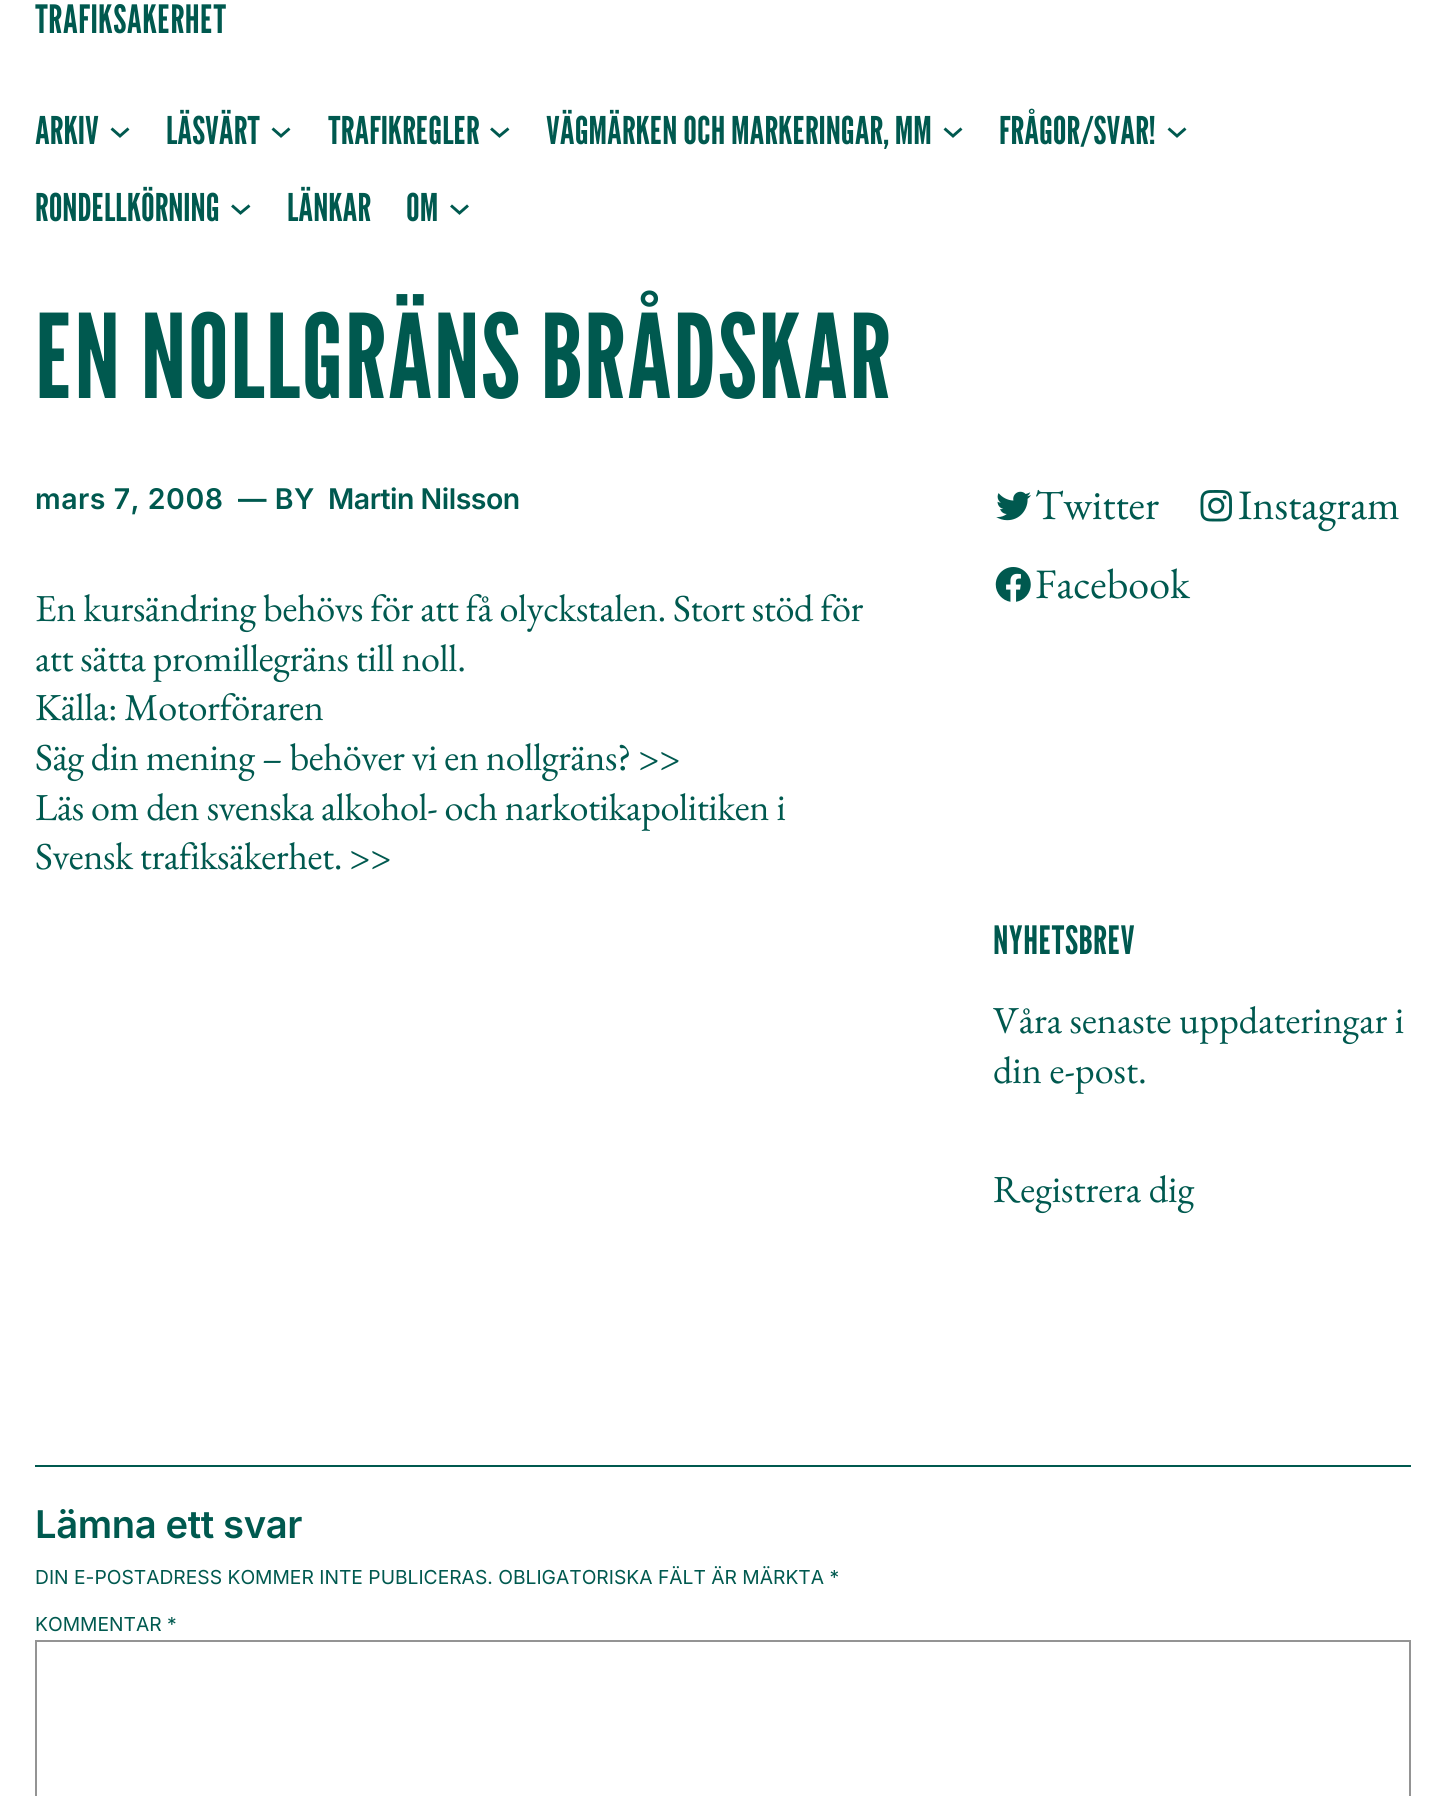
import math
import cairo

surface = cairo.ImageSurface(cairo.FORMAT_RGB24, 1445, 1796)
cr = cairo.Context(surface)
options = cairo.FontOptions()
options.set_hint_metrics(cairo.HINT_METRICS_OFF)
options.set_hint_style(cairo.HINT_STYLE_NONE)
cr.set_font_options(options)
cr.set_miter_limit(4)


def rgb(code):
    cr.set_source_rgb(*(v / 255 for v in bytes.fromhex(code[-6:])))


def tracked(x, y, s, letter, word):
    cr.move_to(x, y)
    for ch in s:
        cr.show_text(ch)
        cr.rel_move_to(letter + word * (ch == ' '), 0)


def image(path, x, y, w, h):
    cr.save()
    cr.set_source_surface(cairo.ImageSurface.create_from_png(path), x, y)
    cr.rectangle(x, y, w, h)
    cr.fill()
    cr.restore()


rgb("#ffffff")
cr.paint()
cr.new_path()
cr.move_to(111.5, 128.5)
cr.line_to(120, 136)
cr.line_to(128.5, 128.5)
rgb("#00594f")
cr.set_line_width(2.9)
cr.stroke()
cr.new_path()
cr.move_to(272.5, 128.5)
cr.line_to(281, 136)
cr.line_to(289.5, 128.5)
cr.stroke()
cr.new_path()
cr.move_to(491, 128.5)
cr.line_to(499.5, 136)
cr.line_to(508.5, 128.5)
cr.stroke()
cr.new_path()
cr.move_to(944.5, 128.5)
cr.line_to(953, 136)
cr.line_to(961.5, 128.5)
cr.stroke()
cr.new_path()
cr.move_to(1168.5, 128.5)
cr.line_to(1177, 136)
cr.line_to(1185.5, 128.5)
cr.stroke()
cr.new_path()
cr.move_to(232, 205.5)
cr.line_to(240.5, 213)
cr.line_to(249.5, 205.5)
cr.stroke()
cr.new_path()
cr.move_to(451, 205.5)
cr.line_to(459.5, 213)
cr.line_to(468, 205.5)
cr.stroke()
image("img/1.png", 996, 491, 35, 30)
image("img/2.png", 1200, 490, 32, 32)
image("img/3.png", 995, 567, 36, 35)
cr.rectangle(35, 1465, 1376, 2)
cr.fill()
cr.rectangle(36, 1641, 1374, 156)
rgb("#949494")
cr.set_line_width(2)
cr.stroke()
cr.select_font_face("League Gothic")
cr.set_font_size(39)
rgb("#00594f")
tracked(35, 33, "TRAFIKSAKERHET", 0.4, 0)
cr.set_font_size(38.2)
for x, y, s in [
    (35, 144, "ARKIV"),
    (166, 144, "LÄSVÄRT"),
    (328, 144, "TRAFIKREGLER"),
    (546, 144, "VÄGMÄRKEN OCH MARKERINGAR, MM"),
    (999, 144, "FRÅGOR/SVAR!"),
    (35, 221, "RONDELLKÖRNING"),
    (287, 221, "LÄNKAR"),
    (406, 221, "OM"),
]:
    cr.move_to(x, y)
    cr.show_text(s)
cr.set_font_size(116.25)
tracked(35, 398, "EN NOLLGRÄNS BRÅDSKAR", 1.2, 0)
cr.select_font_face("Inter SemiBold")
cr.set_font_size(28.5)
tracked(35, 509, "mars 7, 2008", 0.5, 0)
tracked(238, 509, "— BY", 0.5, 0)
tracked(328, 509, "Martin Nilsson", -0.5, 0)
cr.select_font_face("EB Garamond")
cr.set_font_size(38.2)
for x, y, s in [
    (35, 621, "En kursändring behövs för att få olyckstalen. Stort stöd för"),
    (35, 671, "att sätta promillegräns till noll."),
    (35, 720, "Källa: Motorföraren"),
    (35, 770, "Säg din mening – behöver vi en nollgräns? >>"),
    (35, 820, "Läs om den svenska alkohol- och narkotikapolitiken i"),
    (35, 869, "Svensk trafiksäkerhet. >>"),
]:
    tracked(x, y, s, -0.38, 0)
cr.set_font_size(42)
for x, y, s in [
    (1035, 519, "Twitter"),
    (1238, 519, "Instagram"),
    (1035, 598, "Facebook"),
]:
    cr.move_to(x, y)
    cr.show_text(s)
cr.select_font_face("League Gothic")
cr.set_font_size(39)
tracked(993, 954, "NYHETSBREV", 0.4, 0)
cr.select_font_face("EB Garamond")
cr.set_font_size(38.2)
for x, y, s in [
    (993, 1033, "Våra senaste uppdateringar i"),
    (993, 1083, "din e-post."),
    (993, 1202, "Registrera dig"),
]:
    cr.move_to(x, y)
    cr.show_text(s)
cr.select_font_face("Inter SemiBold")
tracked(35, 1538, "Lämna ett svar", -0.4, 0)
cr.select_font_face("Inter")
cr.set_font_size(19.25)
cr.move_to(35, 1584)
cr.show_text("DIN E-POSTADRESS KOMMER INTE PUBLICERAS. OBLIGATORISKA FÄLT ÄR MÄRKTA *")
cr.move_to(35, 1631)
cr.show_text("KOMMENTAR *")
surface.write_to_png("page.png")
